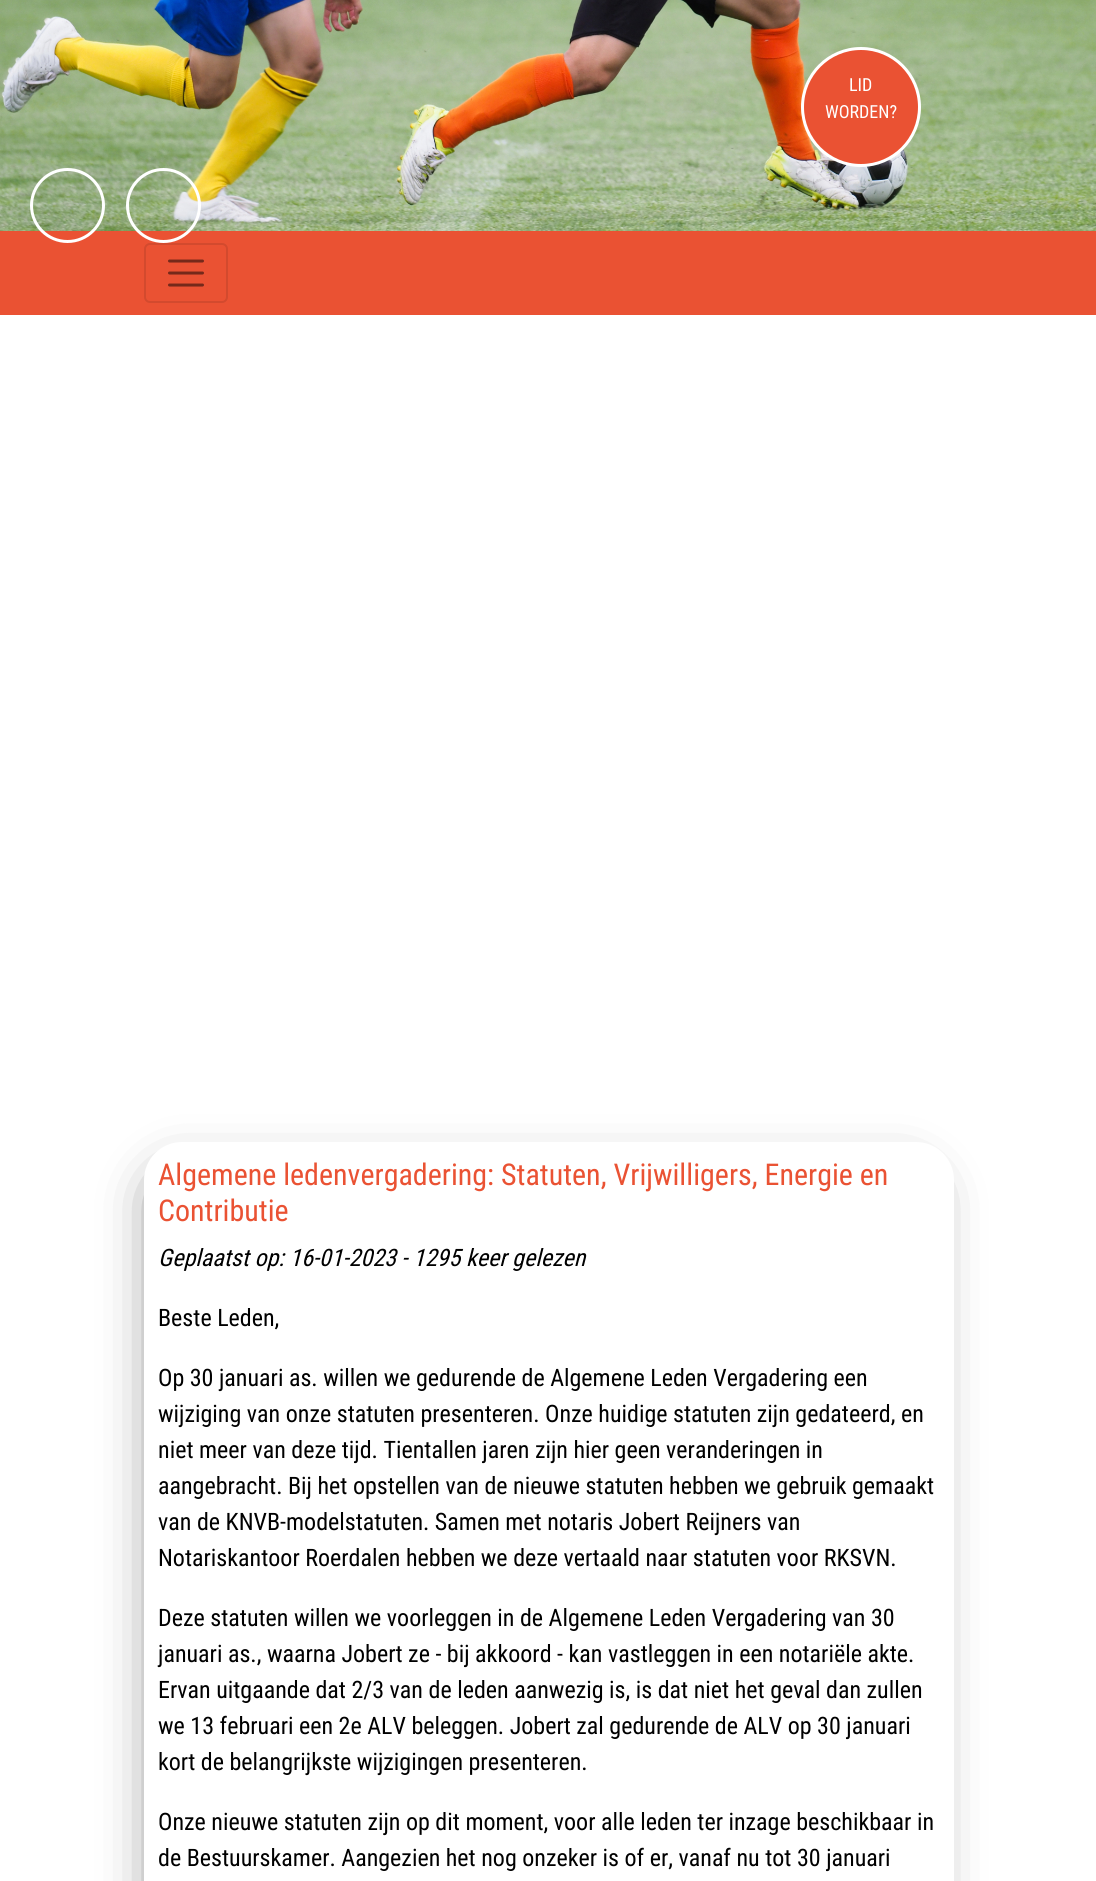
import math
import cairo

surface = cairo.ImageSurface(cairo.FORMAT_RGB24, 1096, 1881)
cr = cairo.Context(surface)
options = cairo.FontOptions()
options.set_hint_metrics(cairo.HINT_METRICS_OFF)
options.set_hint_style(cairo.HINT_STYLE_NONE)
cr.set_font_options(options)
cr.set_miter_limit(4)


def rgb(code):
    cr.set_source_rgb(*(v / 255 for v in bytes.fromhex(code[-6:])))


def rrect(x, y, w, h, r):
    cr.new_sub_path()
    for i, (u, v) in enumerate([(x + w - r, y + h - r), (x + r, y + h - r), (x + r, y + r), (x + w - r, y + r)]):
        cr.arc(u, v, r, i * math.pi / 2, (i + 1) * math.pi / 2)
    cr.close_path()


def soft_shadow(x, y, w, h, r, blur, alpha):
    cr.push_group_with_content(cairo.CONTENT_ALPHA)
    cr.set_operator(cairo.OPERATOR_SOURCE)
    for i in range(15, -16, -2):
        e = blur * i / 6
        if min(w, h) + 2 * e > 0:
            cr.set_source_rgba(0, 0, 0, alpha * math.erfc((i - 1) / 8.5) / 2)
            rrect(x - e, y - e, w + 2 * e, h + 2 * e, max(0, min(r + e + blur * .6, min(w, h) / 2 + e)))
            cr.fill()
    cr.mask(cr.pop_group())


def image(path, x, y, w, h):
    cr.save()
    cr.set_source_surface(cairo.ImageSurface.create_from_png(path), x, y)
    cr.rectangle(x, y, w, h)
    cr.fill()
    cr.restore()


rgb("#ea5233")
cr.paint()
image("img/1.png", 0, 0, 1096, 231)
rgb("#ea5233")
cr.arc(861, 107, 58.5, 0, 2 * math.pi)
cr.fill_preserve()
rgb("#ffffff")
cr.set_line_width(3)
cr.stroke()
cr.arc(67.5, 205.5, 36, 0, 2 * math.pi)
cr.stroke()
cr.arc(163.5, 205.5, 36, 0, 2 * math.pi)
cr.stroke()
rrect(145, 244, 82, 58, 5)
rgb("#d34a2e")
cr.set_line_width(2)
cr.stroke()
cr.new_path()
cr.move_to(169.5, 261)
cr.line_to(202.5, 261)
cr.move_to(169.5, 273)
cr.line_to(202.5, 273)
cr.move_to(169.5, 285)
cr.line_to(202.5, 285)
rgb("#75291a")
cr.set_line_width(3)
cr.set_line_cap(cairo.LINE_CAP_ROUND)
cr.stroke()
rgb("#ffffff")
cr.rectangle(0, 315, 1096, 1566)
cr.fill()
rgb("#000000")
soft_shadow(165, 1185, 753, 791, 9, 28.5, 0.75)
rgb("#ffffff")
rrect(144, 1142, 810, 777, 38)
cr.fill()
cr.select_font_face("Roboto Condensed")
cr.set_font_size(18)
cr.move_to(849, 91)
cr.show_text("LID")
cr.move_to(825, 118)
cr.show_text("WORDEN?")
cr.set_font_size(30)
rgb("#ea5233")
cr.move_to(158, 1185)
cr.show_text("Algemene ledenvergadering: Statuten, Vrijwilligers, Energie en")
cr.move_to(158, 1221)
cr.show_text("Contributie")
cr.select_font_face("Roboto Condensed", cairo.FONT_SLANT_ITALIC)
cr.set_font_size(24)
rgb("#000000")
cr.move_to(158, 1266)
cr.show_text("Geplaatst op: 16-01-2023 - 1295 keer gelezen")
cr.select_font_face("Roboto Condensed")
for x, y, s in [
    (158, 1326, "Beste Leden,"),
    (158, 1386, "Op 30 januari as. willen we gedurende de Algemene Leden Vergadering een"),
    (158, 1422, "wijziging van onze statuten presenteren. Onze huidige statuten zijn gedateerd, en"),
    (158, 1458, "niet meer van deze tijd. Tientallen jaren zijn hier geen veranderingen in"),
    (158, 1494, "aangebracht. Bij het opstellen van de nieuwe statuten hebben we gebruik gemaakt"),
    (158, 1530, "van de KNVB-modelstatuten. Samen met notaris Jobert Reijners van"),
    (158, 1566, "Notariskantoor Roerdalen hebben we deze vertaald naar statuten voor RKSVN."),
    (158, 1626, "Deze statuten willen we voorleggen in de Algemene Leden Vergadering van 30"),
    (158, 1662, "januari as., waarna Jobert ze - bij akkoord - kan vastleggen in een notariële akte."),
    (158, 1698, "Ervan uitgaande dat 2/3 van de leden aanwezig is, is dat niet het geval dan zullen"),
    (158, 1734, "we 13 februari een 2e ALV beleggen. Jobert zal gedurende de ALV op 30 januari"),
    (158, 1770, "kort de belangrijkste wijzigingen presenteren."),
    (158, 1830, "Onze nieuwe statuten zijn op dit moment, voor alle leden ter inzage beschikbaar in"),
    (158, 1866, "de Bestuurskamer. Aangezien het nog onzeker is of er, vanaf nu tot 30 januari"),
]:
    cr.move_to(x, y)
    cr.show_text(s)
surface.write_to_png("page.png")
